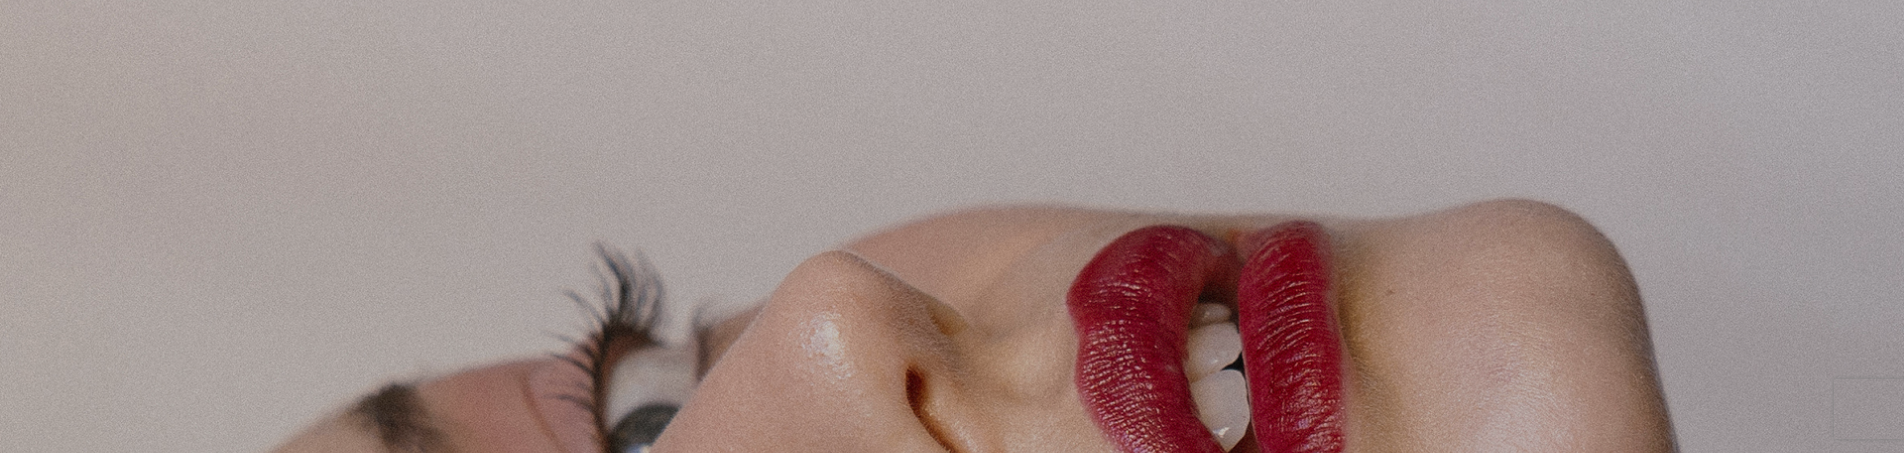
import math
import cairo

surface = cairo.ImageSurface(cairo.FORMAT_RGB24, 1904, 453)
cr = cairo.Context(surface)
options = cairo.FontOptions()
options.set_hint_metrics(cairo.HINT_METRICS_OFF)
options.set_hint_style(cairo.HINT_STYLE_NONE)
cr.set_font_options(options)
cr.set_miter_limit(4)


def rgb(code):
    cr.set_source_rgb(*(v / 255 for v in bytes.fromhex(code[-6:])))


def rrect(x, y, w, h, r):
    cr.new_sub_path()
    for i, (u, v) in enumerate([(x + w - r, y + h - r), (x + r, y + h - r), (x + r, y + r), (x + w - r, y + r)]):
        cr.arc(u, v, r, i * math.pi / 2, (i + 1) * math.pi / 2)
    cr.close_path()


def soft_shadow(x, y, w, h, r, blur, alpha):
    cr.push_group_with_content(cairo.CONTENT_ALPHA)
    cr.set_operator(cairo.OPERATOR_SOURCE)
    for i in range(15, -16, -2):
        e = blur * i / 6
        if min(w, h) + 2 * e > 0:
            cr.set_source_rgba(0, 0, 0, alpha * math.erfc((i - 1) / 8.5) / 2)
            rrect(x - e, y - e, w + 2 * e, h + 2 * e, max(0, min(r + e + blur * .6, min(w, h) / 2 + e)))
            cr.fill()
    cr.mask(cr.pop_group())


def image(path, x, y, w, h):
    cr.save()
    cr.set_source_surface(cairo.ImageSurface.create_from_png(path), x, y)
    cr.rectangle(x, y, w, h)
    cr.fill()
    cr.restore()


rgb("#ffffff")
cr.paint()
image("img/1.png", 0, 0, 1904, 453)
cr.save()
cr.set_fill_rule(cairo.FILL_RULE_EVEN_ODD)
cr.new_path()
cr.move_to(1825, 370)
cr.line_to(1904, 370)
cr.line_to(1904, 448)
cr.line_to(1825, 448)
cr.close_path()
cr.move_to(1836, 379)
cr.line_to(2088, 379)
cr.curve_to(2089, 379, 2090, 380, 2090, 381)
cr.line_to(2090, 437)
cr.curve_to(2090, 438, 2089, 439, 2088, 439)
cr.line_to(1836, 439)
cr.curve_to(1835, 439, 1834, 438, 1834, 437)
cr.line_to(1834, 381)
cr.curve_to(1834, 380, 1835, 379, 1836, 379)
cr.close_path()
cr.clip()
rgb("#808080")
soft_shadow(1834, 379, 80, 60, 2, 2.5, 1)
cr.restore()
surface.write_to_png("page.png")
